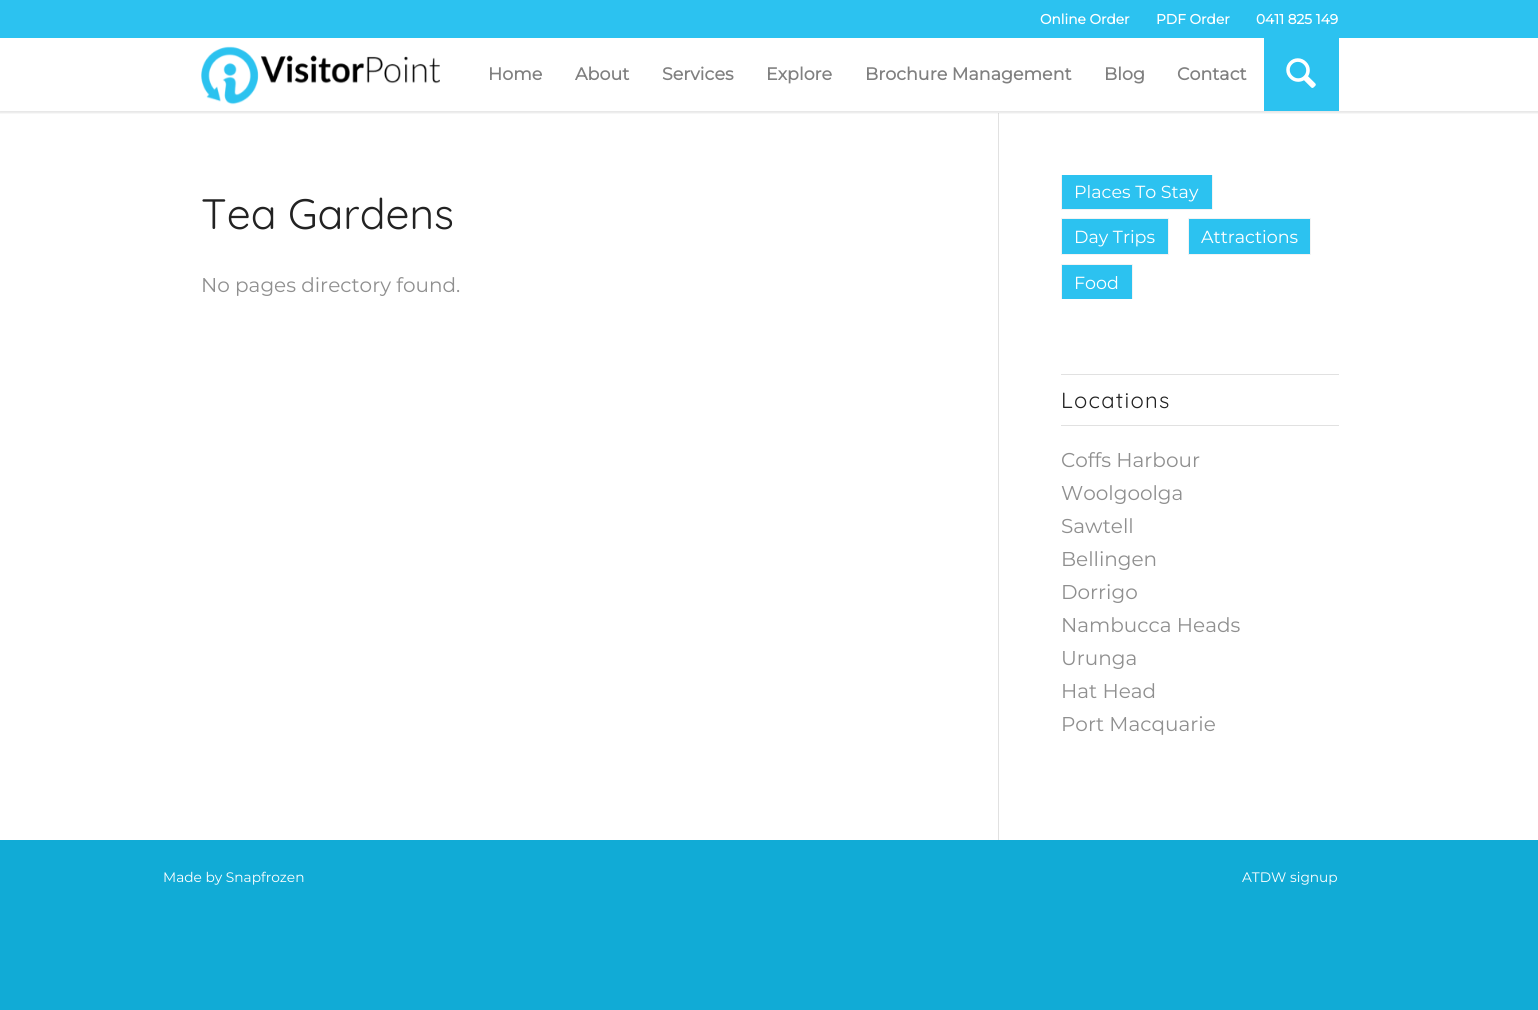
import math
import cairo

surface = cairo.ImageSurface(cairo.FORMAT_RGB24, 1538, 1010)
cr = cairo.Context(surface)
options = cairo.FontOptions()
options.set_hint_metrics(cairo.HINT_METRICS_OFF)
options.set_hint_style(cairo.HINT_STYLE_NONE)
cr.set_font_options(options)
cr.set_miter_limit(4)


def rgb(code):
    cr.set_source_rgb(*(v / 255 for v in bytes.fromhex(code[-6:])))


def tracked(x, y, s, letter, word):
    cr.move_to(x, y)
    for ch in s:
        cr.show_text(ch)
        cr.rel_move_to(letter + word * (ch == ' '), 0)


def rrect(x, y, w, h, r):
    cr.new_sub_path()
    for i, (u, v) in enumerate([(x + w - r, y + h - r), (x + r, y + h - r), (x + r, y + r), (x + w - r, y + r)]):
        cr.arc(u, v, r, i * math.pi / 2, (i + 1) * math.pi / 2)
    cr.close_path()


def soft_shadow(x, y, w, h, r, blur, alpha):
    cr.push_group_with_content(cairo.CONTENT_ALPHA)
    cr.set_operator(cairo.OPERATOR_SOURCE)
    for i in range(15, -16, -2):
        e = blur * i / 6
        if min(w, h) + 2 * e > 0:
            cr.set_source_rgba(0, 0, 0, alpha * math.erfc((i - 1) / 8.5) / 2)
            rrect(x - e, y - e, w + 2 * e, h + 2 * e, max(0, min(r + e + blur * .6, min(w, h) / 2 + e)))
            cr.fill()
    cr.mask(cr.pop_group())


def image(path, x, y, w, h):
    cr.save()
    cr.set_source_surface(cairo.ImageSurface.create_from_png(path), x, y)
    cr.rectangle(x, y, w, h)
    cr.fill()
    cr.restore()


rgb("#11abd6")
cr.paint()
rgb("#ffffff")
cr.rectangle(0, 38, 1538, 802)
cr.fill()
rgb("#e1e1e1")
cr.rectangle(998, 113, 1, 728)
cr.fill()
cr.save()
cr.rectangle(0, 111, 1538, 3)
cr.clip()
rgb("#000000")
soft_shadow(-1, -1, 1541, 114, 0, 1, 0.1)
cr.restore()
rgb("#2cc2f0")
cr.rectangle(0, 0, 1538, 38)
cr.fill()
image("img/1.png", 201, 46, 239, 59)
cr.rectangle(1264, 38, 75, 73)
cr.fill()
image("img/2.png", 1286, 58, 30, 30)
cr.rectangle(1062, 175, 150, 34)
cr.fill()
cr.save()
cr.rectangle(1061, 175, 278, 124)
cr.clip()
cr.rectangle(1061.5, 173.5, 151, 36)
rgb("#f3f3f3")
cr.set_line_width(1)
cr.stroke()
cr.restore()
cr.rectangle(1061.5, 218.5, 107, 36)
cr.fill_preserve()
rgb("#f3f3f3")
cr.set_line_width(1)
cr.stroke()
rgb("#2cc2f0")
cr.rectangle(1188.5, 218.5, 122, 36)
cr.fill_preserve()
rgb("#f3f3f3")
cr.stroke()
rgb("#2cc2f0")
cr.rectangle(1062, 265, 70, 34)
cr.fill()
cr.save()
cr.rectangle(1061, 175, 278, 124)
cr.clip()
cr.rectangle(1061.5, 264.5, 71, 36)
rgb("#f3f3f3")
cr.stroke()
cr.restore()
for x, y, w, h, color in [
    (1061, 374, 278, 1, "#e1e1e1"),
    (1061, 425, 278, 1, "#e1e1e1"),
    (998, 840, 1, 1, "#11abd6"),
]:
    rgb(color)
    cr.rectangle(x, y, w, h)
    cr.fill()
cr.select_font_face("Montserrat", cairo.FONT_SLANT_NORMAL, cairo.FONT_WEIGHT_BOLD)
cr.set_font_size(13.75)
rgb("#ffffff")
for x, y, s in [
    (1040, 24, "Online Order"),
    (1156, 24, "PDF Order"),
    (1256, 24, "0411 825 149"),
]:
    cr.move_to(x, y)
    cr.show_text(s)
cr.set_font_size(17.5)
rgb("#808080")
for x, y, s in [
    (488, 80, "Home"),
    (575, 80, "About"),
    (662, 80, "Services"),
    (766, 80, "Explore"),
    (865, 80, "Brochure Management"),
    (1104, 80, "Blog"),
    (1177, 80, "Contact"),
]:
    cr.move_to(x, y)
    cr.show_text(s)
cr.select_font_face("Quicksand Light")
cr.set_font_size(42.5)
rgb("#222222")
cr.move_to(201, 229)
cr.show_text("Tea Gardens")
cr.select_font_face("Montserrat Thin")
cr.set_font_size(20)
rgb("#8f8f8f")
cr.move_to(201, 292)
cr.show_text("No pages directory found.")
cr.set_font_size(17.5)
rgb("#ffffff")
for x, y, s in [
    (1074, 198, "Places To Stay"),
    (1074, 243, "Day Trips"),
    (1201, 243, "Attractions"),
    (1074, 289, "Food"),
]:
    cr.move_to(x, y)
    cr.show_text(s)
cr.select_font_face("Quicksand Light")
cr.set_font_size(22)
rgb("#222222")
tracked(1061, 408, "Locations", 1.25, 0)
cr.select_font_face("Montserrat Thin")
cr.set_font_size(20)
rgb("#8f8f8f")
for x, y, s in [
    (1061, 467, "Coffs Harbour"),
    (1061, 500, "Woolgoolga"),
    (1061, 533, "Sawtell"),
    (1061, 566, "Bellingen"),
    (1061, 599, "Dorrigo"),
    (1061, 632, "Nambucca Heads"),
    (1061, 665, "Urunga"),
    (1061, 698, "Hat Head"),
    (1061, 731, "Port Macquarie"),
]:
    cr.move_to(x, y)
    cr.show_text(s)
cr.set_font_size(13.75)
rgb("#ffffff")
cr.move_to(163, 882)
cr.show_text("Made by Snapfrozen")
cr.move_to(1242, 882)
cr.show_text("ATDW signup")
surface.write_to_png("page.png")
